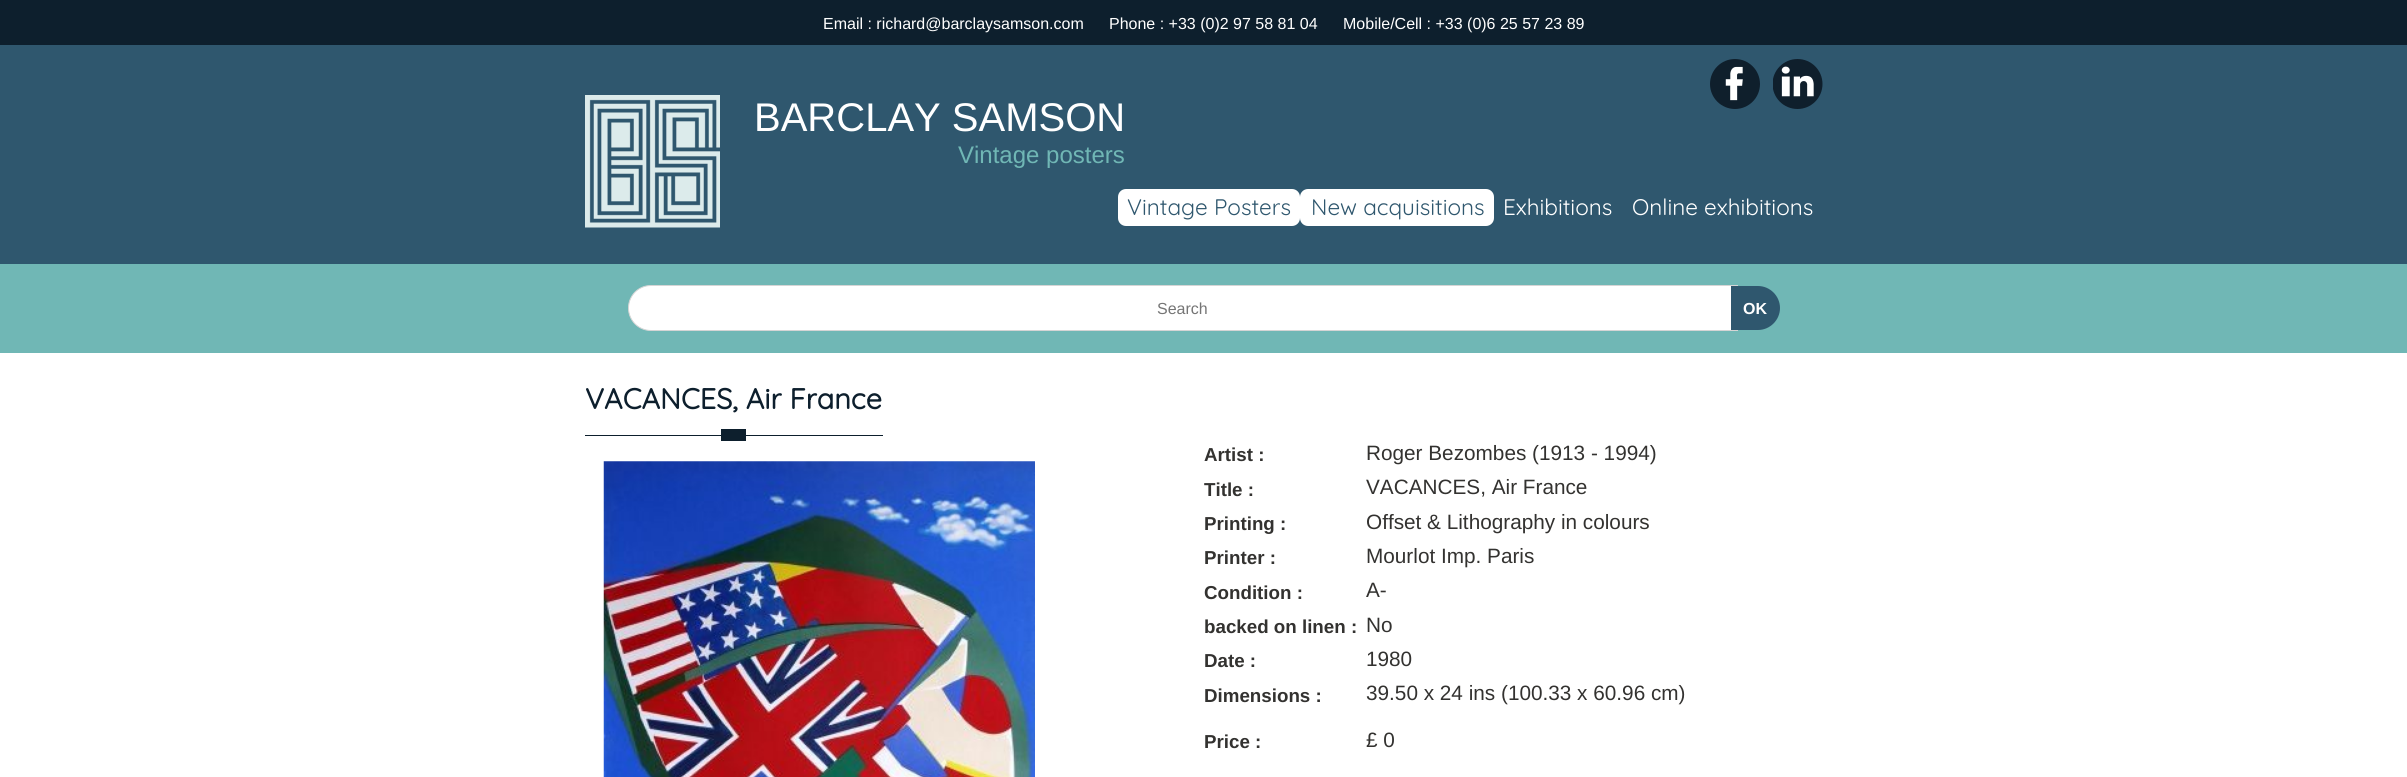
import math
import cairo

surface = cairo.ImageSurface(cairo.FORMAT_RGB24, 2407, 777)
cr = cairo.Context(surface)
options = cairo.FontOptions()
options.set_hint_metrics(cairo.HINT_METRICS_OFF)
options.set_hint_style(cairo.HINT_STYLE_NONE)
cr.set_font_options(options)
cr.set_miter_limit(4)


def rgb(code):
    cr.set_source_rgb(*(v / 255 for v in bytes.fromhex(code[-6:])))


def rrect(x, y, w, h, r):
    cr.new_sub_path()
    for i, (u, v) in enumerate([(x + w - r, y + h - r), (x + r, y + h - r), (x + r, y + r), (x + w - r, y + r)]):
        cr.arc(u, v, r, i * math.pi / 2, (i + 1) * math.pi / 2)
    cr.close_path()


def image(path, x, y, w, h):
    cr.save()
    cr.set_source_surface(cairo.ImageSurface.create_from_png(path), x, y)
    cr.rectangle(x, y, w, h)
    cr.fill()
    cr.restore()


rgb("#ffffff")
cr.paint()
rgb("#2f576e")
cr.rectangle(0, 45, 2407, 219)
cr.fill()
rgb("#0d1f2d")
cr.rectangle(0, 0, 2407, 45)
cr.fill()
image("img/1.png", 1710, 59, 50, 50)
image("img/2.png", 1773, 59, 50, 50)
image("img/3.png", 585, 95, 135, 133)
rgb("#ffffff")
rrect(1118, 189, 182, 37, 8)
cr.fill()
rrect(1300, 189, 194, 37, 8)
cr.fill()
rgb("#70b7b5")
cr.rectangle(0, 264, 2407, 89)
cr.fill()
rgb("#ffffff")
cr.new_path()
cr.move_to(651, 285.5)
cr.line_to(1737.5, 285.5)
cr.line_to(1737.5, 330.5)
cr.line_to(651, 330.5)
cr.curve_to(638.5, 330.5, 628.5, 320.5, 628.5, 308)
cr.curve_to(628.5, 295.5, 638.5, 285.5, 651, 285.5)
cr.close_path()
cr.fill_preserve()
rgb("#d5d5d5")
cr.set_line_width(1)
cr.stroke()
rgb("#2f576e")
cr.new_path()
cr.move_to(1731, 286)
cr.line_to(1758, 286)
cr.curve_to(1770, 286, 1780, 296, 1780, 308)
cr.curve_to(1780, 320, 1770, 330, 1758, 330)
cr.line_to(1731, 330)
cr.close_path()
cr.fill()
rgb("#0d1f2d")
cr.rectangle(585, 435, 298, 1)
cr.fill()
cr.rectangle(721, 429, 25, 12)
cr.fill()
image("img/4.png", 603, 461, 432, 316)
cr.select_font_face("Liberation Sans")
cr.set_font_size(16)
rgb("#ffffff")
for x, y, s in [
    (823, 29, "Email : richard@barclaysamson.com"),
    (1109, 29, "Phone : +33 (0)2 97 58 81 04"),
    (1343, 29, "Mobile/Cell : +33 (0)6 25 57 23 89"),
]:
    cr.move_to(x, y)
    cr.show_text(s)
cr.set_font_size(40)
cr.move_to(754, 131)
cr.show_text("BARCLAY SAMSON")
cr.set_font_size(24)
rgb("#70b7b5")
cr.move_to(958, 163)
cr.show_text("Vintage posters")
cr.select_font_face("Quicksand Light")
cr.set_font_size(22.5)
rgb("#2f576e")
cr.move_to(1127, 215)
cr.show_text("Vintage Posters")
cr.move_to(1311, 215)
cr.show_text("New acquisitions")
rgb("#ffffff")
cr.move_to(1503, 215)
cr.show_text("Exhibitions")
cr.move_to(1632, 215)
cr.show_text("Online exhibitions")
cr.select_font_face("Liberation Sans")
cr.set_font_size(16)
rgb("#757575")
cr.move_to(1157, 314)
cr.show_text("Search")
cr.select_font_face("Liberation Sans", cairo.FONT_SLANT_NORMAL, cairo.FONT_WEIGHT_BOLD)
rgb("#ffffff")
cr.move_to(1743, 314)
cr.show_text("OK")
cr.select_font_face("Quicksand", cairo.FONT_SLANT_NORMAL, cairo.FONT_WEIGHT_BOLD)
cr.set_font_size(28.75)
rgb("#0d1f2d")
cr.move_to(585, 409)
cr.show_text("VACANCES, Air France")
cr.select_font_face("Liberation Sans", cairo.FONT_SLANT_NORMAL, cairo.FONT_WEIGHT_BOLD)
cr.set_font_size(18.75)
rgb("#333230")
cr.move_to(1204, 461)
cr.show_text("Artist :")
cr.select_font_face("Liberation Sans")
cr.set_font_size(20.75)
cr.move_to(1366, 460)
cr.show_text("Roger Bezombes (1913 - 1994)")
cr.select_font_face("Liberation Sans", cairo.FONT_SLANT_NORMAL, cairo.FONT_WEIGHT_BOLD)
cr.set_font_size(18.75)
cr.move_to(1204, 496)
cr.show_text("Title :")
cr.select_font_face("Liberation Sans")
cr.set_font_size(20.75)
cr.move_to(1366, 494)
cr.show_text("VACANCES, Air France")
cr.select_font_face("Liberation Sans", cairo.FONT_SLANT_NORMAL, cairo.FONT_WEIGHT_BOLD)
cr.set_font_size(18.75)
cr.move_to(1204, 530)
cr.show_text("Printing :")
cr.select_font_face("Liberation Sans")
cr.set_font_size(20.75)
cr.move_to(1366, 529)
cr.show_text("Offset & Lithography in colours")
cr.select_font_face("Liberation Sans", cairo.FONT_SLANT_NORMAL, cairo.FONT_WEIGHT_BOLD)
cr.set_font_size(18.75)
cr.move_to(1204, 564)
cr.show_text("Printer :")
cr.select_font_face("Liberation Sans")
cr.set_font_size(20.75)
cr.move_to(1366, 563)
cr.show_text("Mourlot Imp. Paris")
cr.select_font_face("Liberation Sans", cairo.FONT_SLANT_NORMAL, cairo.FONT_WEIGHT_BOLD)
cr.set_font_size(18.75)
cr.move_to(1204, 599)
cr.show_text("Condition :")
cr.select_font_face("Liberation Sans")
cr.set_font_size(20.75)
cr.move_to(1366, 597)
cr.show_text("A-")
cr.select_font_face("Liberation Sans", cairo.FONT_SLANT_NORMAL, cairo.FONT_WEIGHT_BOLD)
cr.set_font_size(18.75)
cr.move_to(1204, 633)
cr.show_text("backed on linen :")
cr.select_font_face("Liberation Sans")
cr.set_font_size(20.75)
cr.move_to(1366, 632)
cr.show_text("No")
cr.select_font_face("Liberation Sans", cairo.FONT_SLANT_NORMAL, cairo.FONT_WEIGHT_BOLD)
cr.set_font_size(18.75)
cr.move_to(1204, 667)
cr.show_text("Date :")
cr.select_font_face("Liberation Sans")
cr.set_font_size(20.75)
cr.move_to(1366, 666)
cr.show_text("1980")
cr.select_font_face("Liberation Sans", cairo.FONT_SLANT_NORMAL, cairo.FONT_WEIGHT_BOLD)
cr.set_font_size(18.75)
cr.move_to(1204, 702)
cr.show_text("Dimensions :")
cr.select_font_face("Liberation Sans")
cr.set_font_size(20.75)
cr.move_to(1366, 700)
cr.show_text("39.50 x 24 ins (100.33 x 60.96 cm)")
cr.select_font_face("Liberation Sans", cairo.FONT_SLANT_NORMAL, cairo.FONT_WEIGHT_BOLD)
cr.set_font_size(18.75)
cr.move_to(1204, 748)
cr.show_text("Price :")
cr.select_font_face("Liberation Sans")
cr.set_font_size(20.75)
cr.move_to(1366, 747)
cr.show_text("£ 0")
surface.write_to_png("page.png")
